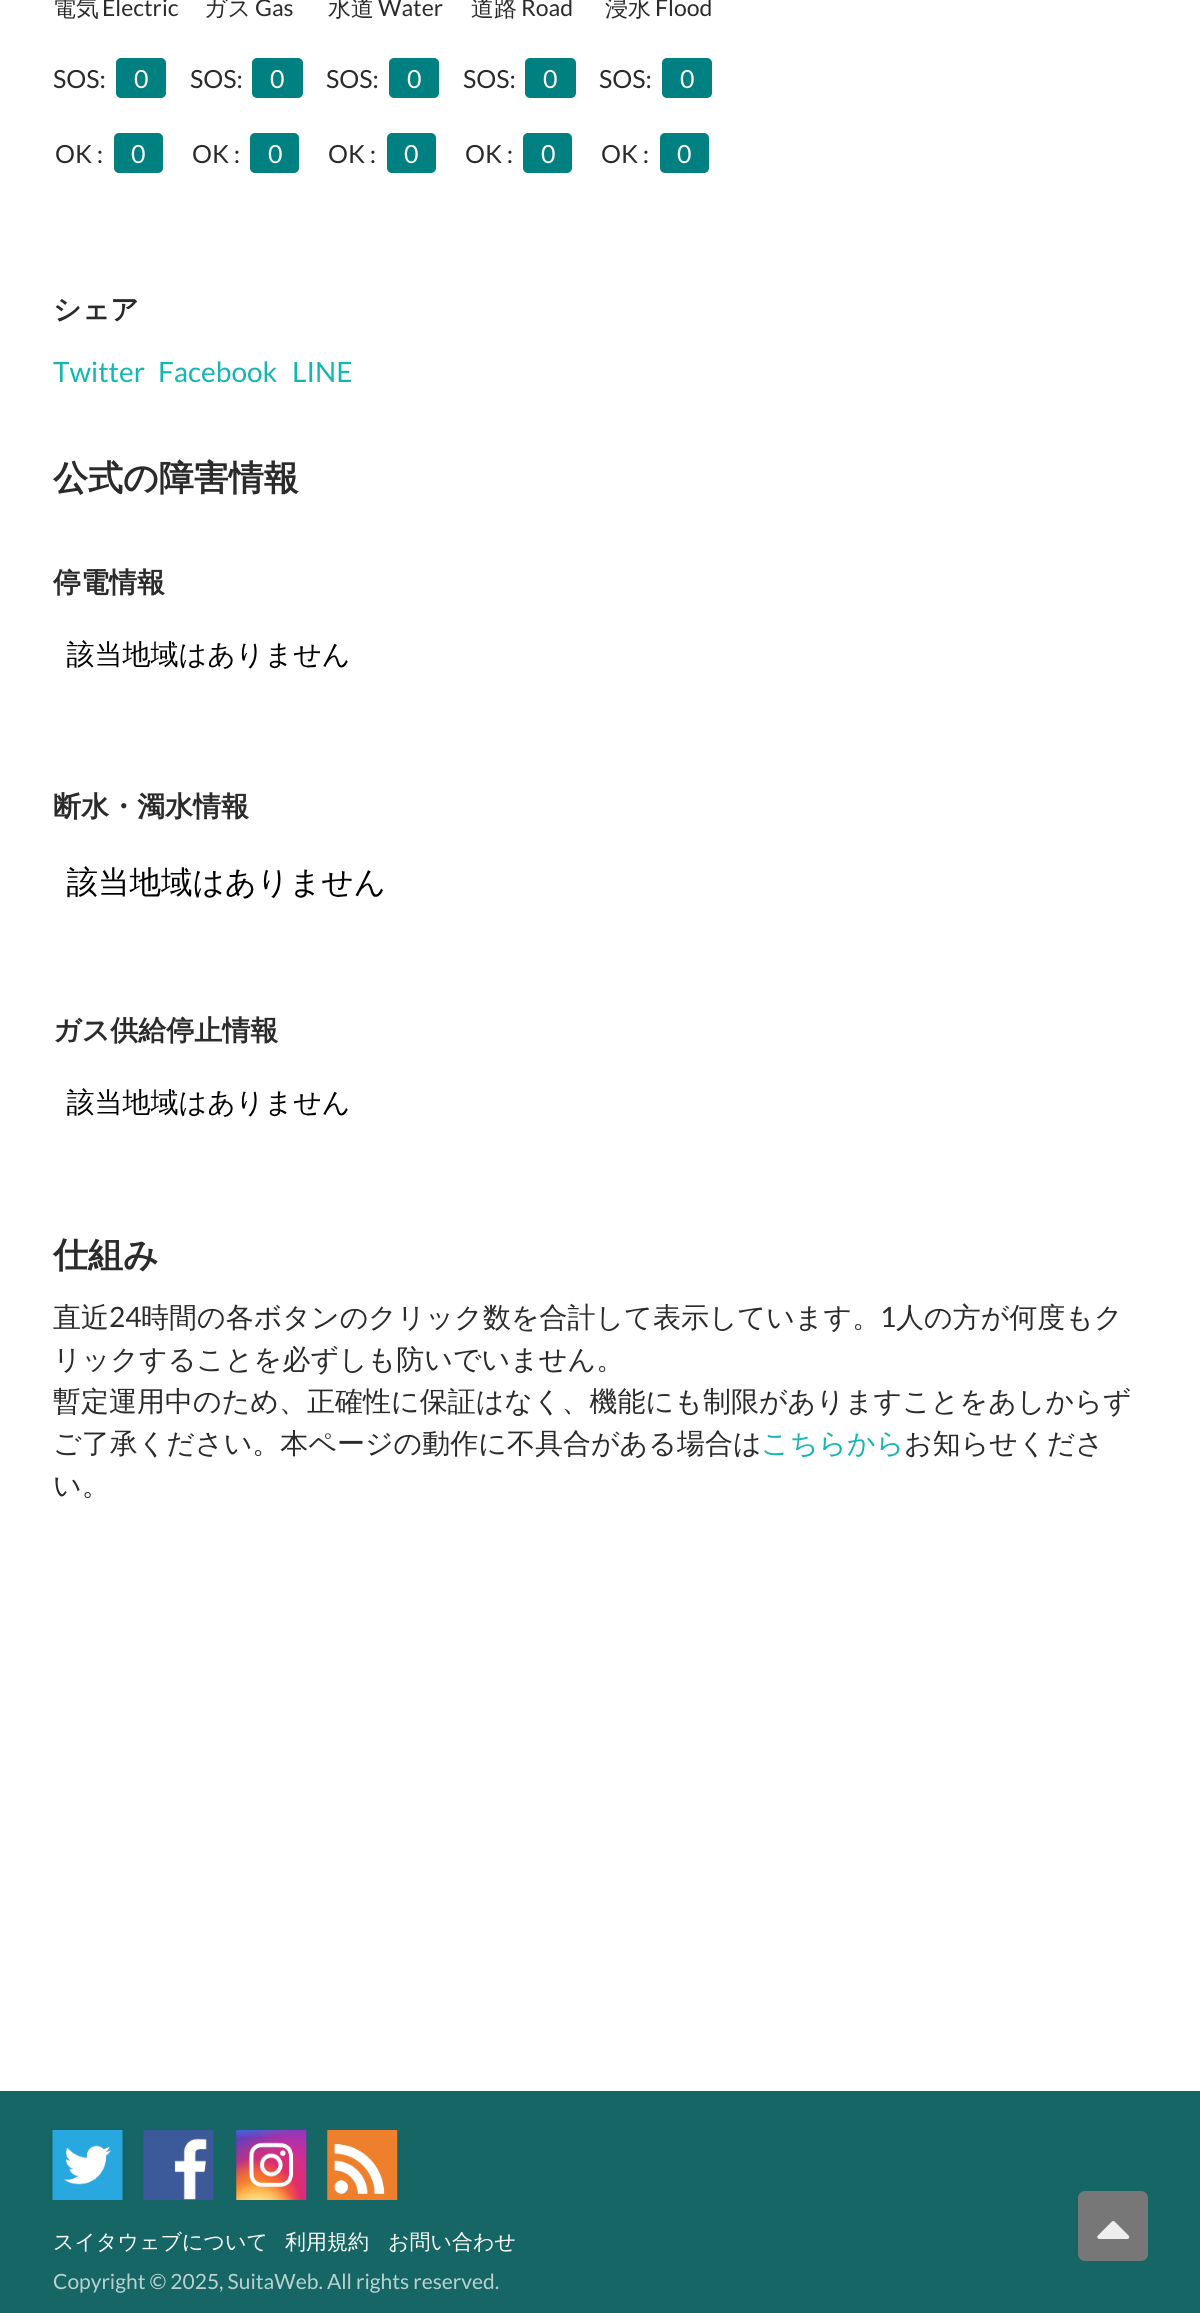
import math
import cairo

surface = cairo.ImageSurface(cairo.FORMAT_RGB24, 1200, 2313)
cr = cairo.Context(surface)
options = cairo.FontOptions()
options.set_hint_metrics(cairo.HINT_METRICS_OFF)
options.set_hint_style(cairo.HINT_STYLE_NONE)
cr.set_font_options(options)
cr.set_miter_limit(4)


def rgb(code):
    cr.set_source_rgb(*(v / 255 for v in bytes.fromhex(code[-6:])))


def rrect(x, y, w, h, r):
    cr.new_sub_path()
    for i, (u, v) in enumerate([(x + w - r, y + h - r), (x + r, y + h - r), (x + r, y + r), (x + w - r, y + r)]):
        cr.arc(u, v, r, i * math.pi / 2, (i + 1) * math.pi / 2)
    cr.close_path()


def image(path, x, y, w, h):
    cr.save()
    cr.set_source_surface(cairo.ImageSurface.create_from_png(path), x, y)
    cr.rectangle(x, y, w, h)
    cr.fill()
    cr.restore()


rgb("#ffffff")
cr.paint()
rgb("#008080")
rrect(116, 58, 50, 40, 5)
cr.fill()
rrect(114, 133, 49, 40, 5)
cr.fill()
rrect(252, 58, 51, 40, 5)
cr.fill()
rrect(250, 133, 49, 40, 5)
cr.fill()
rrect(389, 58, 50, 40, 5)
cr.fill()
rrect(387, 133, 49, 40, 5)
cr.fill()
rrect(525, 58, 51, 40, 5)
cr.fill()
rrect(523, 133, 49, 40, 5)
cr.fill()
rrect(662, 58, 50, 40, 5)
cr.fill()
rrect(660, 133, 49, 40, 5)
cr.fill()
image("img/1.png", 66, 640, 282, 29)
image("img/2.png", 66, 866, 317, 33)
image("img/1.png", 66, 1088, 282, 29)
rgb("#176666")
cr.rectangle(0, 2091, 1200, 222)
cr.fill()
image("img/3.png", 52, 2130, 71, 70)
image("img/4.png", 143, 2130, 71, 70)
image("img/5.png", 236, 2130, 71, 70)
image("img/6.png", 327, 2130, 71, 70)
rgb("#777777")
rrect(1078, 2191, 70, 70, 7)
cr.fill()
image("img/7.png", 1097, 2221, 33, 18)
cr.select_font_face("WenQuanYi Zen Hei Medium")
cr.set_font_size(23)
rgb("#2b2b2b")
cr.move_to(53, 16)
cr.show_text("電気")
cr.select_font_face("Lato")
cr.move_to(102, 16)
cr.show_text("Electric")
cr.set_font_size(25)
cr.move_to(53, 88)
cr.show_text("SOS:")
rgb("#ffffff")
cr.move_to(134, 88)
cr.show_text("0")
rgb("#2b2b2b")
cr.move_to(55, 163)
cr.show_text("OK :")
rgb("#ffffff")
cr.move_to(131, 163)
cr.show_text("0")
cr.select_font_face("WenQuanYi Zen Hei Medium")
cr.set_font_size(23)
rgb("#2b2b2b")
cr.move_to(204, 16)
cr.show_text("ガス")
cr.select_font_face("Lato")
cr.move_to(255, 16)
cr.show_text("Gas")
cr.set_font_size(25)
cr.move_to(190, 88)
cr.show_text("SOS:")
rgb("#ffffff")
cr.move_to(270, 88)
cr.show_text("0")
rgb("#2b2b2b")
cr.move_to(192, 163)
cr.show_text("OK :")
rgb("#ffffff")
cr.move_to(268, 163)
cr.show_text("0")
cr.select_font_face("WenQuanYi Zen Hei Medium")
cr.set_font_size(23)
rgb("#2b2b2b")
cr.move_to(328, 16)
cr.show_text("水道")
cr.select_font_face("Lato")
cr.move_to(378, 16)
cr.show_text("Water")
cr.set_font_size(25)
cr.move_to(326, 88)
cr.show_text("SOS:")
rgb("#ffffff")
cr.move_to(407, 88)
cr.show_text("0")
rgb("#2b2b2b")
cr.move_to(328, 163)
cr.show_text("OK :")
rgb("#ffffff")
cr.move_to(404, 163)
cr.show_text("0")
cr.select_font_face("WenQuanYi Zen Hei Medium")
cr.set_font_size(23)
rgb("#2b2b2b")
cr.move_to(471, 16)
cr.show_text("道路")
cr.select_font_face("Lato")
cr.move_to(521, 16)
cr.show_text("Road")
cr.set_font_size(25)
cr.move_to(463, 88)
cr.show_text("SOS:")
rgb("#ffffff")
cr.move_to(543, 88)
cr.show_text("0")
rgb("#2b2b2b")
cr.move_to(465, 163)
cr.show_text("OK :")
rgb("#ffffff")
cr.move_to(541, 163)
cr.show_text("0")
cr.select_font_face("WenQuanYi Zen Hei Medium")
cr.set_font_size(23)
rgb("#2b2b2b")
cr.move_to(605, 16)
cr.show_text("浸水")
cr.select_font_face("Lato")
cr.move_to(655, 16)
cr.show_text("Flood")
cr.set_font_size(25)
cr.move_to(599, 88)
cr.show_text("SOS:")
rgb("#ffffff")
cr.move_to(680, 88)
cr.show_text("0")
rgb("#2b2b2b")
cr.move_to(601, 163)
cr.show_text("OK :")
rgb("#ffffff")
cr.move_to(677, 163)
cr.show_text("0")
cr.select_font_face("WenQuanYi Zen Hei", cairo.FONT_SLANT_NORMAL, cairo.FONT_WEIGHT_BOLD)
cr.set_font_size(28)
rgb("#2b2b2b")
cr.move_to(53, 319)
cr.show_text("シェア")
cr.select_font_face("Lato")
rgb("#14b6b1")
for x, y, s in [
    (53, 382, "Twitter"),
    (158, 382, "Facebook"),
    (292, 382, "LINE"),
]:
    cr.move_to(x, y)
    cr.show_text(s)
cr.select_font_face("WenQuanYi Zen Hei", cairo.FONT_SLANT_NORMAL, cairo.FONT_WEIGHT_BOLD)
cr.set_font_size(35)
rgb("#2b2b2b")
cr.move_to(53, 490)
cr.show_text("公式の障害情報")
cr.set_font_size(28)
for x, y, s in [
    (53, 592, "停電情報"),
    (53, 816, "断水・濁水情報"),
    (53, 1040, "ガス供給停止情報"),
]:
    cr.move_to(x, y)
    cr.show_text(s)
cr.set_font_size(35)
cr.move_to(53, 1267)
cr.show_text("仕組み")
cr.select_font_face("WenQuanYi Zen Hei Medium")
cr.set_font_size(28)
cr.move_to(53, 1327)
cr.show_text("直近")
cr.select_font_face("Lato")
cr.move_to(109, 1327)
cr.show_text("24")
cr.select_font_face("WenQuanYi Zen Hei Medium")
cr.move_to(141, 1327)
cr.show_text("時間の各ボタンのクリック数を合計して表示しています。")
cr.select_font_face("Lato")
cr.move_to(880, 1327)
cr.show_text("1")
cr.select_font_face("WenQuanYi Zen Hei Medium")
for x, y, s in [
    (896, 1327, "人の方が何度もク"),
    (53, 1369, "リックすることを必ずしも防いでいません。"),
    (53, 1411, "暫定運用中のため、正確性に保証はなく、機能にも制限がありますことをあしからず"),
    (53, 1453, "ご了承ください。本ページの動作に不具合がある場合は"),
]:
    cr.move_to(x, y)
    cr.show_text(s)
rgb("#14b6b1")
cr.move_to(761, 1453)
cr.show_text("こちらから")
rgb("#2b2b2b")
cr.move_to(904, 1453)
cr.show_text("お知らせくださ")
cr.move_to(53, 1495)
cr.show_text("い。")
cr.set_font_size(21)
rgb("#ffffff")
for x, y, s in [
    (53, 2249, "スイタウェブについて"),
    (285, 2249, "利用規約"),
    (388, 2249, "お問い合わせ"),
]:
    cr.move_to(x, y)
    cr.show_text(s)
cr.select_font_face("Lato")
rgb("#b9d1d1")
cr.move_to(53, 2289)
cr.show_text("Copyright © 2025, SuitaWeb. All rights reserved.")
surface.write_to_png("page.png")
